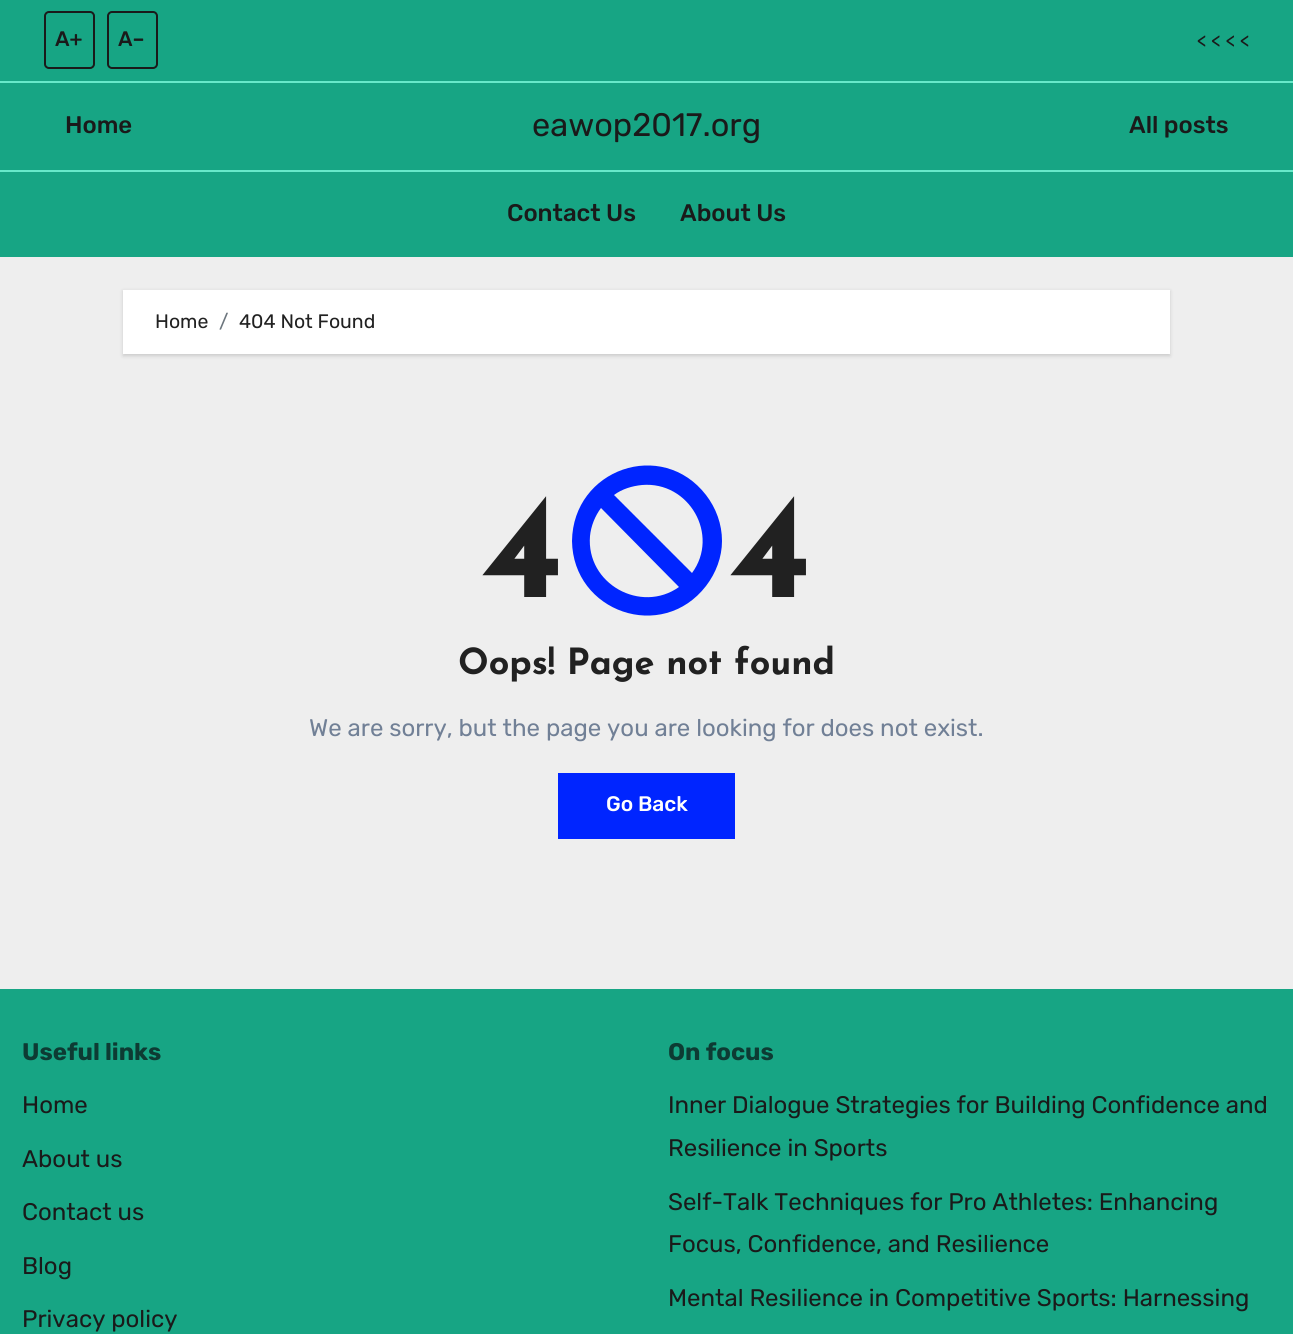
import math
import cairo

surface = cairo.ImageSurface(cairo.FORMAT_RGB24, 1293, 1334)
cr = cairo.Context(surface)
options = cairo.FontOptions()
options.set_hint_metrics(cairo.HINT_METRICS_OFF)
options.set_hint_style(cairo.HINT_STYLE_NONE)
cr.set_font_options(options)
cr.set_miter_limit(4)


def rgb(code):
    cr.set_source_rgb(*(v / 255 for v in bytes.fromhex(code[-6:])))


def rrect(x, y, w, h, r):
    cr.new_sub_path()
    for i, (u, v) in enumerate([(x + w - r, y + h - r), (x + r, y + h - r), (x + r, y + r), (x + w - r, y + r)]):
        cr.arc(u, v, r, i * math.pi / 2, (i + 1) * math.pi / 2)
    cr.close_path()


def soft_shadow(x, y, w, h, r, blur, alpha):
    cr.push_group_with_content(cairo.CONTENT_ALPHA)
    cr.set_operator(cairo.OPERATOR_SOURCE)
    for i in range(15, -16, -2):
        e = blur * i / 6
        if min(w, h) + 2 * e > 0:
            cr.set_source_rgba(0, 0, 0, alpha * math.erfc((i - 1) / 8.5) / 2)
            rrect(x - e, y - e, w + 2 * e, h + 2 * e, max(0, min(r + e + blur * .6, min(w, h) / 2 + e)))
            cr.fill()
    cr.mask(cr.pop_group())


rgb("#17a584")
cr.paint()
rrect(45, 12, 49, 56, 4)
rgb("#1a1a1a")
cr.stroke()
rrect(108, 12, 49, 56, 4)
cr.stroke()
for x, y, w, h, color in [
    (0, 81, 1293, 2, "#67e9ca"),
    (0, 170, 1293, 2, "#67e9ca"),
    (0, 257, 1293, 732, "#eeeeee"),
]:
    rgb(color)
    cr.rectangle(x, y, w, h)
    cr.fill()
rgb("#000000")
soft_shadow(123, 291, 1047, 65, 0, 2, 0.15)
rgb("#ffffff")
cr.rectangle(123, 290, 1047, 64)
cr.fill()
rgb("#0025ff")
cr.new_path()
cr.move_to(679, 587)
cr.line_to(601, 508)
cr.curve_to(595, 516, 591, 526, 590, 536)
cr.curve_to(586, 584, 641, 614, 679, 587)
cr.close_path()
cr.move_to(692, 573)
cr.curve_to(720, 535, 689, 481, 642, 485)
cr.curve_to(632, 486, 622, 489, 614, 495)
cr.close_path()
cr.move_to(572, 541)
cr.curve_to(573, 469, 662, 438, 706, 495)
cr.curve_to(716, 508, 722, 524, 722, 541)
cr.curve_to(722, 557, 716, 573, 706, 586)
cr.curve_to(662, 643, 573, 612, 572, 541)
cr.close_path()
cr.fill()
cr.rectangle(558, 773, 177, 66)
cr.fill()
cr.select_font_face("Rubik Medium")
cr.set_font_size(21)
rgb("#1a1a1a")
cr.move_to(55, 46)
cr.show_text("A+")
cr.move_to(118, 46)
cr.show_text("A–")
cr.select_font_face("Rubik Light")
cr.set_font_size(19.5)
cr.move_to(1197, 47)
cr.show_text("< < < <")
cr.select_font_face("Rubik Medium")
cr.set_font_size(24)
cr.move_to(65, 133)
cr.show_text("Home")
cr.select_font_face("Rubik Light")
cr.set_font_size(32.5)
cr.move_to(532, 136)
cr.show_text("eawop2017.org")
cr.select_font_face("Rubik Medium")
cr.set_font_size(24)
for x, y, s in [
    (1129, 133, "All posts"),
    (507, 221, "Contact Us"),
    (680, 221, "About Us"),
]:
    cr.move_to(x, y)
    cr.show_text(s)
cr.select_font_face("Rubik Light")
cr.set_font_size(19.5)
rgb("#212121")
cr.move_to(155, 328)
cr.show_text("Home")
rgb("#6c757d")
cr.move_to(219, 328)
cr.show_text("/")
rgb("#212121")
cr.move_to(239, 328)
cr.show_text("404 Not Found")
cr.select_font_face("Josefin Sans", cairo.FONT_SLANT_NORMAL, cairo.FONT_WEIGHT_BOLD)
cr.set_font_size(150)
cr.move_to(481, 597)
cr.show_text("4")
cr.move_to(729, 597)
cr.show_text("4")
cr.set_font_size(36)
cr.move_to(458, 674)
cr.show_text("Oops! Page not found")
cr.select_font_face("Rubik Light")
cr.set_font_size(24)
rgb("#718096")
cr.move_to(309, 736)
cr.show_text("We are sorry, but the page you are looking for does not exist.")
cr.select_font_face("Rubik Medium")
cr.set_font_size(21)
rgb("#ffffff")
cr.move_to(606, 811)
cr.show_text("Go Back")
cr.select_font_face("Rubik", cairo.FONT_SLANT_NORMAL, cairo.FONT_WEIGHT_BOLD)
cr.set_font_size(24)
rgb("#0d3b33")
cr.move_to(22, 1060)
cr.show_text("Useful links")
cr.select_font_face("Rubik Light")
rgb("#1a1a1a")
for x, y, s in [
    (22, 1113, "Home"),
    (22, 1167, "About us"),
    (22, 1220, "Contact us"),
    (22, 1274, "Blog"),
    (22, 1327, "Privacy policy"),
]:
    cr.move_to(x, y)
    cr.show_text(s)
cr.select_font_face("Rubik", cairo.FONT_SLANT_NORMAL, cairo.FONT_WEIGHT_BOLD)
rgb("#0d3b33")
cr.move_to(668, 1060)
cr.show_text("On focus")
cr.select_font_face("Rubik Light")
rgb("#1a1a1a")
for x, y, s in [
    (668, 1113, "Inner Dialogue Strategies for Building Confidence and"),
    (668, 1156, "Resilience in Sports"),
    (668, 1210, "Self-Talk Techniques for Pro Athletes: Enhancing"),
    (668, 1252, "Focus, Confidence, and Resilience"),
    (668, 1306, "Mental Resilience in Competitive Sports: Harnessing"),
]:
    cr.move_to(x, y)
    cr.show_text(s)
surface.write_to_png("page.png")
